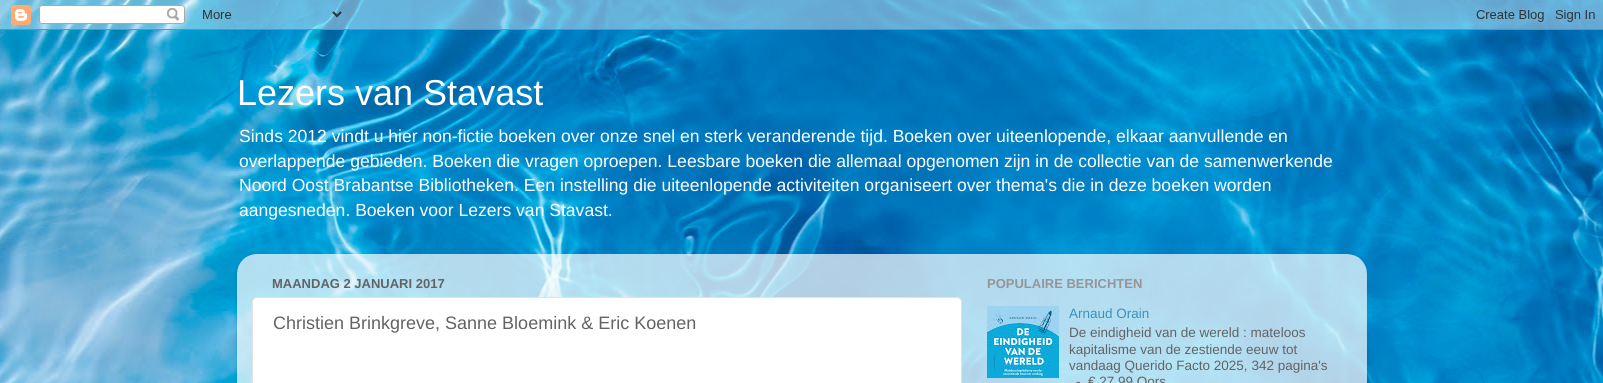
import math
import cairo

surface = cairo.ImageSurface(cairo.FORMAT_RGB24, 1603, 383)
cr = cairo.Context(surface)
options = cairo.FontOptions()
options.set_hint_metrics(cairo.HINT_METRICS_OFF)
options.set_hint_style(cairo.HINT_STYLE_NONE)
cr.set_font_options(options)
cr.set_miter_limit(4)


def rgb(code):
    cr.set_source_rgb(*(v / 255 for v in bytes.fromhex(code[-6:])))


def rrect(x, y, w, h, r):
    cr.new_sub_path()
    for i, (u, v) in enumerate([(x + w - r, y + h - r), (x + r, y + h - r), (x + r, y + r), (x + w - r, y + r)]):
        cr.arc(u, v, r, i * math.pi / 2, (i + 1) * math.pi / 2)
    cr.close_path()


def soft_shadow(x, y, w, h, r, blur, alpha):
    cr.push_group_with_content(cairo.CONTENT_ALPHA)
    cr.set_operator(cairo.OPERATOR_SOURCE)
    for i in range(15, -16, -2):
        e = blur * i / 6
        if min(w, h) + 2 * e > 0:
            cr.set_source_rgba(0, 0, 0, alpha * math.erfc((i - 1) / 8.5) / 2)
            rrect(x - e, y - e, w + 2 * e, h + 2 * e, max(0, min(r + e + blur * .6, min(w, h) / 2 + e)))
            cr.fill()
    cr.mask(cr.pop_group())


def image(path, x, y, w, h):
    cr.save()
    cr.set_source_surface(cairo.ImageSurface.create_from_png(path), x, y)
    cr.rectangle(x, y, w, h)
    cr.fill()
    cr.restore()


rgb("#ffffff")
cr.paint()
image("img/1.png", 0, 0, 1603, 383)
image("img/2.png", 0, 0, 1603, 30)
cr.save()
cr.set_fill_rule(cairo.FILL_RULE_EVEN_ODD)
cr.new_path()
cr.move_to(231, 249)
cr.line_to(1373, 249)
cr.line_to(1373, 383)
cr.line_to(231, 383)
cr.close_path()
cr.move_to(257, 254)
cr.line_to(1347, 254)
cr.curve_to(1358, 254, 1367, 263, 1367, 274)
cr.line_to(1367, 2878)
cr.line_to(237, 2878)
cr.line_to(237, 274)
cr.curve_to(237, 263, 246, 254, 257, 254)
cr.close_path()
cr.clip()
rgb("#000000")
soft_shadow(237, 255, 1130, 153, 20, 1.5, 0.15)
cr.restore()
image("img/3.png", 237, 254, 1130, 129)
rgb("#ffffff")
rrect(252.5, 297.5, 709, 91, 4.5)
cr.fill_preserve()
rgb("#e2e2e2")
cr.set_line_width(1)
cr.stroke()
image("img/4.png", 987, 306, 72, 72)
cr.select_font_face("Liberation Sans")
cr.set_font_size(36)
rgb("#ffffff")
cr.move_to(237, 105)
cr.show_text("Lezers van Stavast")
cr.set_font_size(17.55)
for x, y, s in [
    (239, 142, "Sinds 2012 vindt u hier non-fictie boeken over onze snel en sterk veranderende tijd. Boeken over uiteenlopende, elkaar aanvullende en"),
    (239, 167, "overlappende gebieden. Boeken die vragen oproepen. Leesbare boeken die allemaal opgenomen zijn in de collectie van de samenwerkende"),
    (239, 191, "Noord Oost Brabantse Bibliotheken. Een instelling die uiteenlopende activiteiten organiseert over thema's die in deze boeken worden"),
    (239, 216, "aangesneden. Boeken voor Lezers van Stavast."),
]:
    cr.move_to(x, y)
    cr.show_text(s)
cr.select_font_face("Liberation Sans", cairo.FONT_SLANT_NORMAL, cairo.FONT_WEIGHT_BOLD)
cr.set_font_size(13)
rgb("#636363")
cr.move_to(272, 288)
cr.show_text("MAANDAG 2 JANUARI 2017")
cr.select_font_face("Liberation Sans")
cr.set_font_size(18)
cr.move_to(273, 329)
cr.show_text("Christien Brinkgreve, Sanne Bloemink & Eric Koenen")
cr.select_font_face("Liberation Sans", cairo.FONT_SLANT_NORMAL, cairo.FONT_WEIGHT_BOLD)
cr.set_font_size(13)
rgb("#959595")
cr.move_to(987, 288)
cr.show_text("POPULAIRE BERICHTEN")
cr.select_font_face("Liberation Sans")
cr.set_font_size(13.5)
rgb("#3e8fba")
cr.move_to(1069, 318)
cr.show_text("Arnaud Orain")
rgb("#636363")
for x, y, s in [
    (1069, 337, "De eindigheid van de wereld : mateloos"),
    (1069, 354, "kapitalisme van de zestiende eeuw tot"),
    (1069, 370, "vandaag Querido Facto 2025, 342 pagina's"),
    (1076, 386, "-  € 27,99 Oors"),
]:
    cr.move_to(x, y)
    cr.show_text(s)
surface.write_to_png("page.png")
